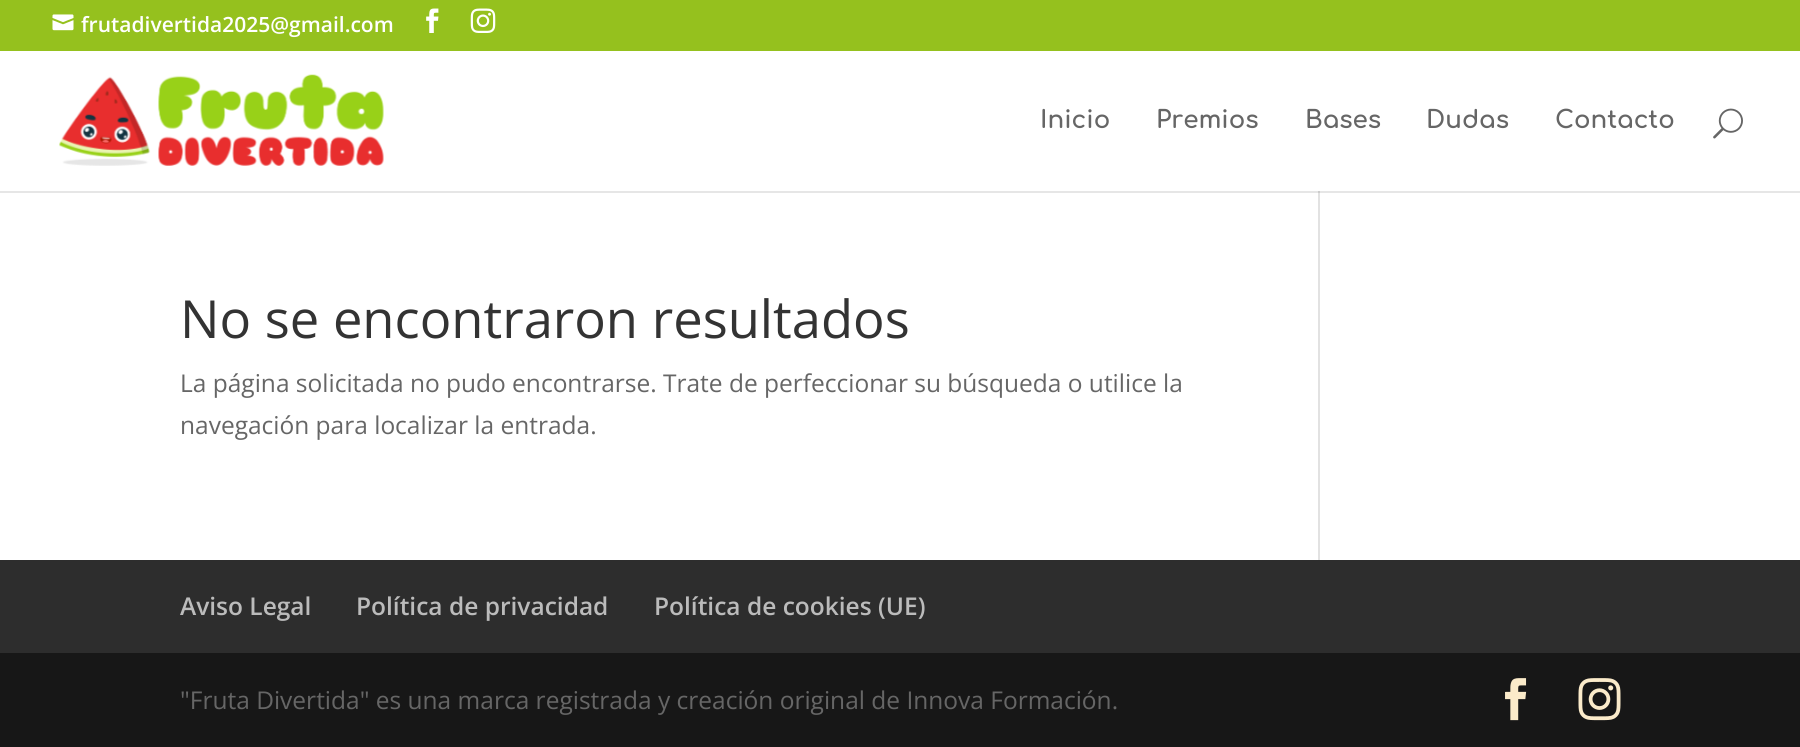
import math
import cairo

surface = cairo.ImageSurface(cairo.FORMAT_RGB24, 1800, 747)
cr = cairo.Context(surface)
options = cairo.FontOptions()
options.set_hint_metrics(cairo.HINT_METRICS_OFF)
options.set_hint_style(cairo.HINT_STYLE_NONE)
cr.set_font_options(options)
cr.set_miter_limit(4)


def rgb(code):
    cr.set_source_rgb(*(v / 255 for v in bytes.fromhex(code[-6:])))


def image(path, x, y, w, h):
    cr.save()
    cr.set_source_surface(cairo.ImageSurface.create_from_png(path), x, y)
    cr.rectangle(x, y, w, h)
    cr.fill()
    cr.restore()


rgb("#ffffff")
cr.paint()
rgb("#95c11e")
cr.rectangle(0, 0, 1800, 51)
cr.fill()
image("img/1.png", 52, 14, 22, 17)
image("img/2.png", 426, 8, 13, 25)
image("img/3.png", 470, 8, 26, 25)
rgb("#e2e2e2")
cr.rectangle(1318, 191, 2, 369)
cr.fill()
cr.set_source_rgba(0, 0, 0, 0.1)
cr.new_path()
cr.move_to(0, 191)
cr.line_to(0, 193)
cr.line_to(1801, 193)
cr.line_to(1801, 53)
cr.line_to(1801, 191)
cr.close_path()
cr.fill()
image("img/4.png", 59, 74, 325, 92)
image("img/5.png", 1713, 108, 30, 31)
rgb("#2d2d2d")
cr.rectangle(0, 560, 1800, 93)
cr.fill()
rgb("#171717")
cr.rectangle(0, 653, 1800, 94)
cr.fill()
image("img/6.png", 1505, 678, 22, 43)
image("img/7.png", 1578, 678, 43, 43)
cr.select_font_face("Open Sans SemiBold")
cr.set_font_size(21)
rgb("#ffffff")
cr.move_to(81, 32)
cr.show_text("frutadivertida2025@gmail.com")
cr.select_font_face("Comfortaa", cairo.FONT_SLANT_NORMAL, cairo.FONT_WEIGHT_BOLD)
cr.set_font_size(24.5)
rgb("#666666")
for x, y, s in [
    (1040, 128, "Inicio"),
    (1156, 128, "Premios"),
    (1305, 128, "Bases"),
    (1426, 128, "Dudas"),
    (1555, 128, "Contacto"),
]:
    cr.move_to(x, y)
    cr.show_text(s)
cr.select_font_face("Open Sans")
cr.set_font_size(52.5)
rgb("#333333")
cr.move_to(180, 338)
cr.show_text("No se encontraron resultados")
cr.set_font_size(24.5)
rgb("#666666")
cr.move_to(180, 392)
cr.show_text("La página solicitada no pudo encontrarse. Trate de perfeccionar su búsqueda o utilice la")
cr.move_to(180, 434)
cr.show_text("navegación para localizar la entrada.")
cr.select_font_face("Open Sans SemiBold")
rgb("#bbbbbb")
for x, y, s in [
    (180, 615, "Aviso Legal"),
    (356, 615, "Política de privacidad"),
    (654, 615, "Política de cookies (UE)"),
]:
    cr.move_to(x, y)
    cr.show_text(s)
cr.select_font_face("Open Sans")
rgb("#666666")
cr.move_to(180, 709)
cr.show_text("\"Fruta Divertida\" es una marca registrada y creación original de Innova Formación.")
surface.write_to_png("page.png")
